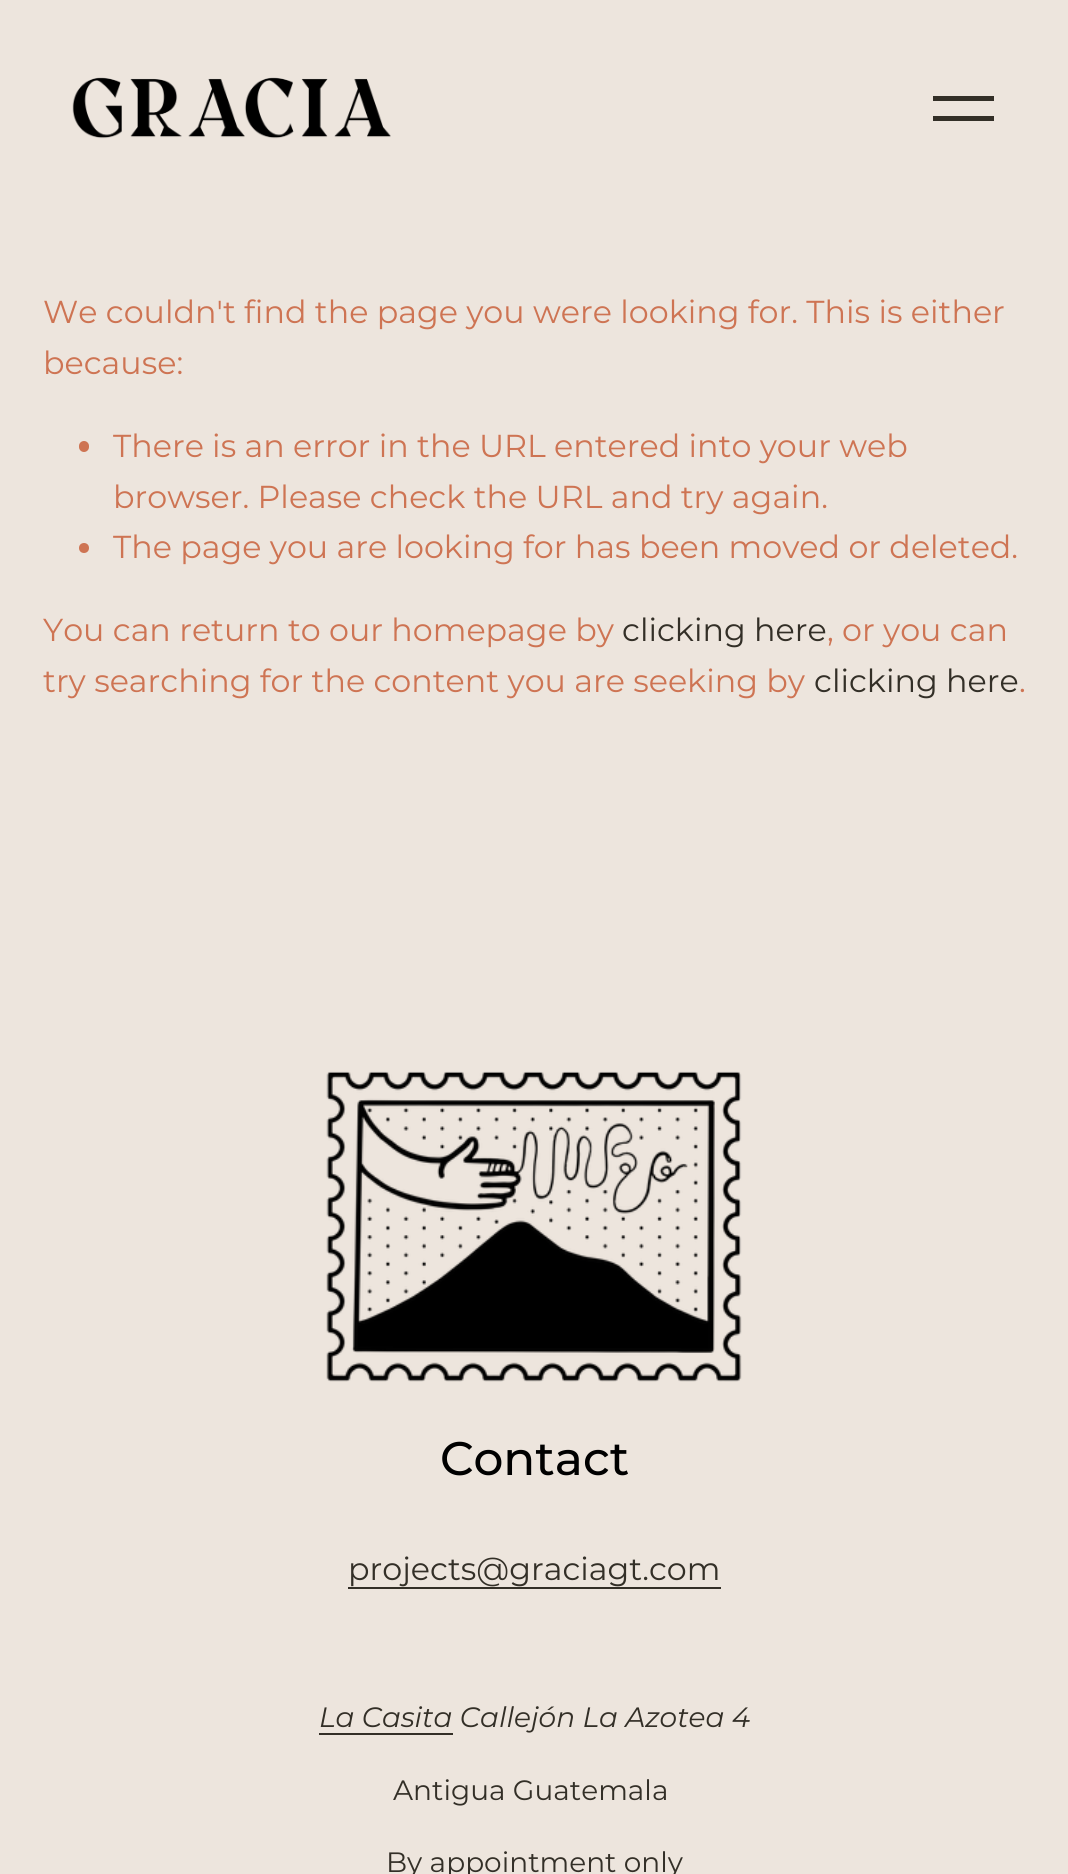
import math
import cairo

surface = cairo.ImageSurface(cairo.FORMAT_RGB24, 1068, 1874)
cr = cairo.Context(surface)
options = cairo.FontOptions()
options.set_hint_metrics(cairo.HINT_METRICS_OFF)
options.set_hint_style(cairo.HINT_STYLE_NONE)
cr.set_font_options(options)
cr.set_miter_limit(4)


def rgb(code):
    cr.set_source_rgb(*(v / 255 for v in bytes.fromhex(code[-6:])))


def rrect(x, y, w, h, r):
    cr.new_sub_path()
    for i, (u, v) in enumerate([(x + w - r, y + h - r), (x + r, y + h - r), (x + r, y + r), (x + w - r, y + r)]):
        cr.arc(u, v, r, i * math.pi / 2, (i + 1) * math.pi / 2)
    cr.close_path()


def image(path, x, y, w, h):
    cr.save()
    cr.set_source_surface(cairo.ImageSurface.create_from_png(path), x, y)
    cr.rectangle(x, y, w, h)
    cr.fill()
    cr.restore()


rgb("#ede5dd")
cr.paint()
image("img/1.png", 72, 77, 319, 62)
rgb("#332f27")
cr.rectangle(933, 96, 61, 5)
cr.fill()
cr.rectangle(933, 116, 61, 5)
cr.fill()
rgb("#ce7453")
rrect(79, 441, 10, 11, 5)
cr.fill()
cr.arc(84, 548, 5, 0, 2 * math.pi)
cr.fill()
image("img/2.png", 326, 1071, 416, 311)
rgb("#332f27")
cr.rectangle(348, 1587, 373, 2)
cr.fill()
cr.rectangle(319, 1733, 134, 2)
cr.fill()
cr.select_font_face("Montserrat")
cr.set_font_size(31.75)
rgb("#ce7453")
for x, y, s in [
    (43, 323, "We couldn't find the page you were looking for. This is either"),
    (43, 374, "because:"),
    (113, 457, "There is an error in the URL entered into your web"),
    (113, 508, "browser. Please check the URL and try again."),
    (113, 558, "The page you are looking for has been moved or deleted."),
    (43, 641, "You can return to our homepage by"),
]:
    cr.move_to(x, y)
    cr.show_text(s)
rgb("#332f27")
cr.move_to(622, 641)
cr.show_text("clicking here")
rgb("#ce7453")
cr.move_to(827, 641)
cr.show_text(", or you can")
cr.move_to(43, 692)
cr.show_text("try searching for the content you are seeking by")
rgb("#332f27")
cr.move_to(814, 692)
cr.show_text("clicking here")
rgb("#ce7453")
cr.move_to(1019, 692)
cr.show_text(".")
cr.select_font_face("Montserrat Medium")
cr.set_font_size(47)
rgb("#000000")
cr.move_to(440, 1475)
cr.show_text("Contact")
cr.select_font_face("Montserrat")
cr.set_font_size(31.75)
rgb("#332f27")
cr.move_to(348, 1580)
cr.show_text("projects@graciagt.com")
cr.select_font_face("Montserrat", cairo.FONT_SLANT_ITALIC)
cr.set_font_size(28)
cr.move_to(319, 1727)
cr.show_text("La Casita Callejón La Azotea 4")
cr.select_font_face("Montserrat")
cr.move_to(393, 1800)
cr.show_text("Antigua Guatemala")
cr.move_to(386, 1872)
cr.show_text("By appointment only")
surface.write_to_png("page.png")
